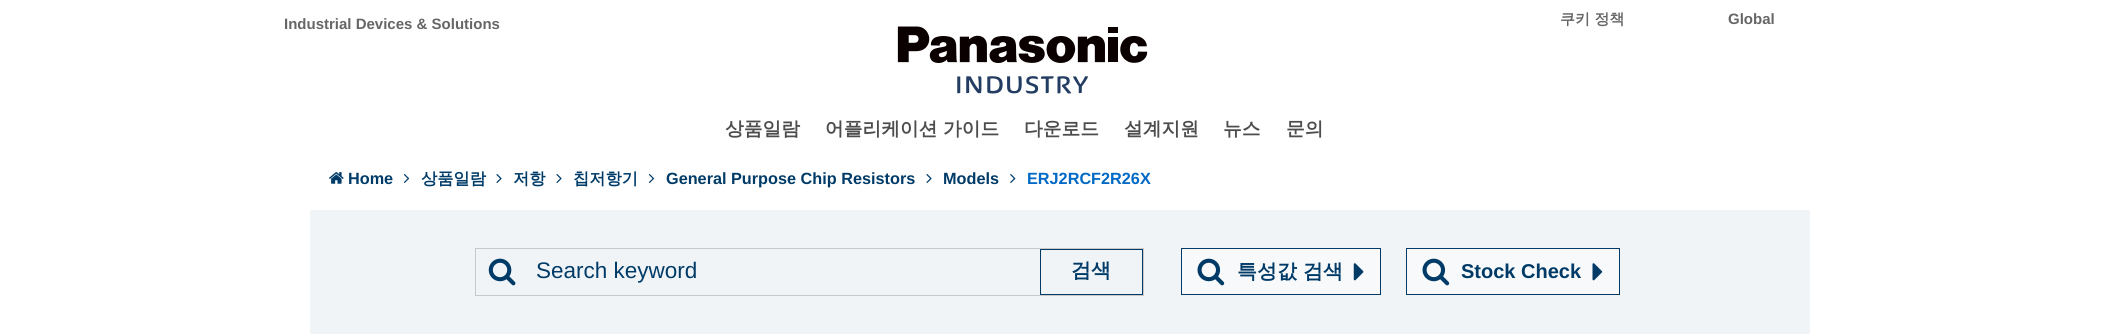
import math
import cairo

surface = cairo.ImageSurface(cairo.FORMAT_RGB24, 2118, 334)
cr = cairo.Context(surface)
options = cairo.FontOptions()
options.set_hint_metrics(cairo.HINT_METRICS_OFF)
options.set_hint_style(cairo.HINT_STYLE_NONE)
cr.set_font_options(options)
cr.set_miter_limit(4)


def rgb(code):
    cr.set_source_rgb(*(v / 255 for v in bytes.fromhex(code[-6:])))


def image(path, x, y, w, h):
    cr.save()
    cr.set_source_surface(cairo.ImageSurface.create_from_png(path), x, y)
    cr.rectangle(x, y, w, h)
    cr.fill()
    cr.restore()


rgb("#ffffff")
cr.paint()
image("img/1.png", 897, 26, 251, 68)
image("img/2.png", 329, 172, 15, 12)
image("img/3.png", 403, 174, 7, 9)
image("img/4.png", 496, 174, 6, 9)
image("img/4.png", 556, 174, 6, 9)
image("img/3.png", 648, 174, 7, 9)
image("img/4.png", 926, 174, 6, 9)
image("img/5.png", 1010, 174, 6, 9)
rgb("#f1f4f6")
cr.rectangle(310, 210, 1500, 124)
cr.fill()
cr.rectangle(475.5, 248.5, 668, 47)
rgb("#c9c9c9")
cr.set_line_width(1)
cr.stroke()
image("img/6.png", 488, 258, 28, 28)
cr.rectangle(1040.5, 249.5, 102, 45)
rgb("#003b68")
cr.stroke()
rgb("#f8f9fa")
cr.rectangle(1181.5, 248.5, 199, 46)
cr.fill_preserve()
rgb("#003b68")
cr.stroke()
image("img/7.png", 1197, 258, 28, 28)
image("img/8.png", 1353, 263, 11, 18)
rgb("#f8f9fa")
cr.rectangle(1406.5, 248.5, 213, 46)
cr.fill_preserve()
rgb("#003b68")
cr.stroke()
image("img/7.png", 1422, 258, 28, 28)
image("img/9.png", 1592, 263, 11, 18)
cr.select_font_face("Liberation Sans", cairo.FONT_SLANT_NORMAL, cairo.FONT_WEIGHT_BOLD)
cr.set_font_size(15)
rgb("#666666")
cr.move_to(284, 29)
cr.show_text("Industrial Devices & Solutions")
cr.select_font_face("WenQuanYi Zen Hei", cairo.FONT_SLANT_NORMAL, cairo.FONT_WEIGHT_BOLD)
cr.move_to(1560, 24)
cr.show_text("쿠키 정책")
cr.select_font_face("Liberation Sans", cairo.FONT_SLANT_NORMAL, cairo.FONT_WEIGHT_BOLD)
cr.move_to(1728, 24)
cr.show_text("Global")
cr.select_font_face("WenQuanYi Zen Hei", cairo.FONT_SLANT_NORMAL, cairo.FONT_WEIGHT_BOLD)
cr.set_font_size(18.75)
rgb("#4d4d4d")
for x, y, s in [
    (725, 135, "상품일람"),
    (825, 135, "어플리케이션 가이드"),
    (1024, 135, "다운로드"),
    (1124, 135, "설계지원"),
    (1223, 135, "뉴스"),
    (1286, 135, "문의"),
]:
    cr.move_to(x, y)
    cr.show_text(s)
cr.select_font_face("Liberation Sans", cairo.FONT_SLANT_NORMAL, cairo.FONT_WEIGHT_BOLD)
cr.set_font_size(16.25)
rgb("#003b68")
cr.move_to(348, 184)
cr.show_text("Home")
cr.select_font_face("WenQuanYi Zen Hei", cairo.FONT_SLANT_NORMAL, cairo.FONT_WEIGHT_BOLD)
for x, y, s in [
    (421, 184, "상품일람"),
    (513, 184, "저항"),
    (573, 184, "칩저항기"),
]:
    cr.move_to(x, y)
    cr.show_text(s)
cr.select_font_face("Liberation Sans", cairo.FONT_SLANT_NORMAL, cairo.FONT_WEIGHT_BOLD)
cr.move_to(666, 184)
cr.show_text("General Purpose Chip Resistors")
cr.move_to(943, 184)
cr.show_text("Models")
rgb("#0069c5")
cr.move_to(1027, 184)
cr.show_text("ERJ2RCF2R26X")
cr.select_font_face("Liberation Sans")
cr.set_font_size(22.5)
rgb("#003b68")
cr.move_to(536, 278)
cr.show_text("Search keyword")
cr.select_font_face("WenQuanYi Zen Hei", cairo.FONT_SLANT_NORMAL, cairo.FONT_WEIGHT_BOLD)
cr.set_font_size(20)
cr.move_to(1071, 277)
cr.show_text("검색")
cr.move_to(1237, 278)
cr.show_text("특성값 검색")
cr.select_font_face("Liberation Sans", cairo.FONT_SLANT_NORMAL, cairo.FONT_WEIGHT_BOLD)
cr.move_to(1461, 278)
cr.show_text("Stock Check")
surface.write_to_png("page.png")
